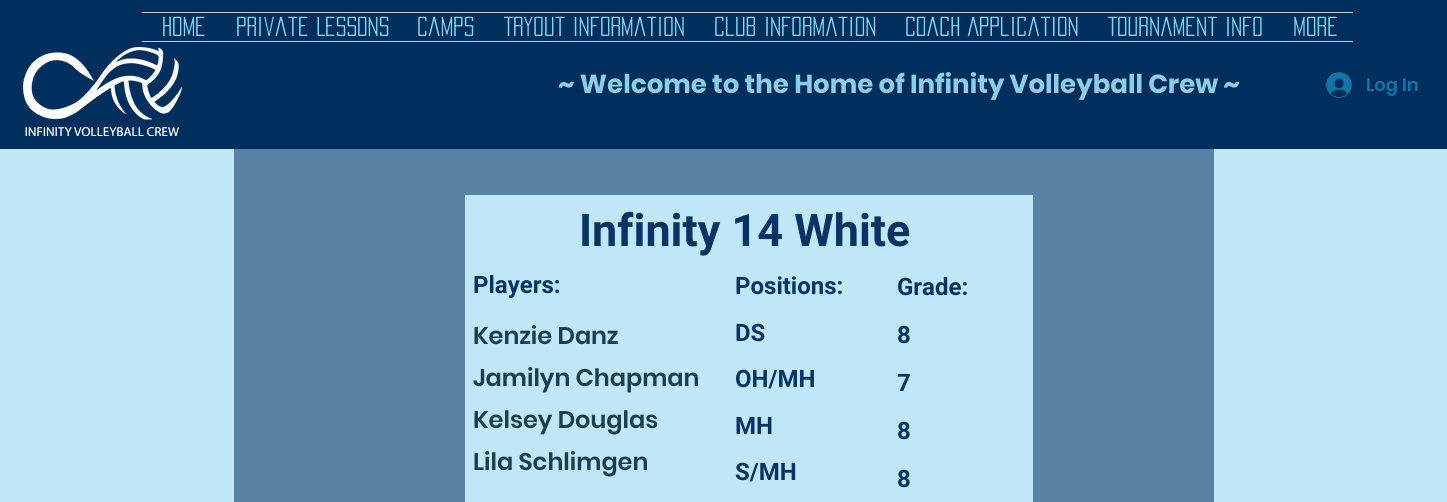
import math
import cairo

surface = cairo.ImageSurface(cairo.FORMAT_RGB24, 1447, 502)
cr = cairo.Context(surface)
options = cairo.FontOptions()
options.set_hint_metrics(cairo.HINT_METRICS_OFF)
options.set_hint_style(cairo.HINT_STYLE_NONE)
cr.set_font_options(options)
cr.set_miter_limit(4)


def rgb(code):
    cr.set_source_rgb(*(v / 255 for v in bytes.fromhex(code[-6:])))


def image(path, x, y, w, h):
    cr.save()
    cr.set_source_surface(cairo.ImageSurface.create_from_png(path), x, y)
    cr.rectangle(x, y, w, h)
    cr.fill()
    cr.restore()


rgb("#bfe7f7")
cr.paint()
for x, y, w, h, color in [
    (0, 0, 1447, 149, "#002e5d"),
    (142, 12, 1211, 1, "#cacaca"),
    (142, 41, 1211, 1, "#cacaca"),
]:
    rgb(color)
    cr.rectangle(x, y, w, h)
    cr.fill()
image("img/1.png", 23, 47, 159, 89)
image("img/2.png", 1326, 72, 26, 26)
rgb("#5883a4")
cr.rectangle(234, 149, 980, 353)
cr.fill()
rgb("#bfe7f7")
cr.rectangle(465, 195, 568, 307)
cr.fill()
cr.select_font_face("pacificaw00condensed")
cr.set_font_size(24)
rgb("#84d6f0")
for x, y, s in [
    (162, 36, "Home"),
    (236, 36, "Private Lessons"),
    (417, 36, "Camps"),
    (504, 36, "Tryout Information"),
    (714, 36, "Club Information"),
    (905, 36, "Coach Application"),
    (1108, 36, "Tournament Info"),
    (1293, 36, "More"),
]:
    cr.move_to(x, y)
    cr.show_text(s)
cr.select_font_face("Poppins", cairo.FONT_SLANT_NORMAL, cairo.FONT_WEIGHT_BOLD)
cr.set_font_size(26)
rgb("#8fcde7")
cr.move_to(558, 93)
cr.show_text("~ Welcome to the Home of Infinity Volleyball Crew ~")
cr.select_font_face("Poppins SemiBold")
cr.set_font_size(18)
rgb("#1374a8")
cr.move_to(1366, 91)
cr.show_text("Log In")
cr.select_font_face("Roboto", cairo.FONT_SLANT_NORMAL, cairo.FONT_WEIGHT_BOLD)
cr.set_font_size(45)
rgb("#083363")
cr.move_to(579, 246)
cr.show_text("Infinity 14 White")
cr.set_font_size(24)
cr.move_to(473, 293)
cr.show_text("Players:")
cr.select_font_face("Poppins SemiBold")
rgb("#193e4d")
for x, y, s in [
    (473, 344, "Kenzie Danz"),
    (473, 386, "Jamilyn Chapman"),
    (473, 428, "Kelsey Douglas"),
    (473, 470, "Lila Schlimgen"),
]:
    cr.move_to(x, y)
    cr.show_text(s)
cr.select_font_face("Roboto", cairo.FONT_SLANT_NORMAL, cairo.FONT_WEIGHT_BOLD)
rgb("#083363")
for x, y, s in [
    (735, 294, "Positions:"),
    (735, 341, "DS"),
    (735, 387, "OH/MH"),
    (735, 434, "MH"),
    (735, 480, "S/MH"),
    (897, 295, "Grade:"),
    (897, 343, "8"),
    (897, 391, "7"),
    (897, 439, "8"),
    (897, 487, "8"),
]:
    cr.move_to(x, y)
    cr.show_text(s)
surface.write_to_png("page.png")
